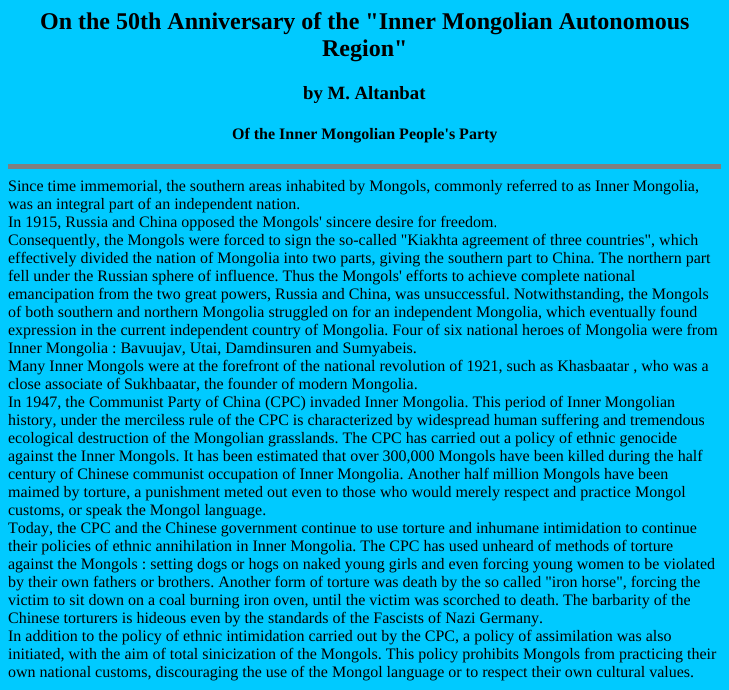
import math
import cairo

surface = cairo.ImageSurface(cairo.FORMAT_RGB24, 729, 690)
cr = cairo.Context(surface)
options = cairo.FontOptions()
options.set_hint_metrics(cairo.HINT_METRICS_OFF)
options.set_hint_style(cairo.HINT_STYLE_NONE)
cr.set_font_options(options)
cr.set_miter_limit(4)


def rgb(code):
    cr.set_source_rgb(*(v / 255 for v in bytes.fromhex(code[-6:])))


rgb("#00caff")
cr.paint()
rgb("#808080")
cr.rectangle(8, 164, 713, 5)
cr.fill()
cr.select_font_face("Liberation Serif", cairo.FONT_SLANT_NORMAL, cairo.FONT_WEIGHT_BOLD)
cr.set_font_size(24)
rgb("#000000")
cr.move_to(40, 29)
cr.show_text("On the 50th Anniversary of the \"Inner Mongolian Autonomous")
cr.move_to(322, 56)
cr.show_text("Region\"")
cr.set_font_size(18.75)
cr.move_to(303, 99)
cr.show_text("by M. Altanbat")
cr.set_font_size(16)
cr.move_to(232, 139)
cr.show_text("Of the Inner Mongolian People's Party")
cr.select_font_face("Liberation Serif")
for x, y, s in [
    (8, 191, "Since time immemorial, the southern areas inhabited by Mongols, commonly referred to as Inner Mongolia,"),
    (8, 209, "was an integral part of an independent nation."),
    (8, 227, "In 1915, Russia and China opposed the Mongols' sincere desire for freedom."),
    (8, 245, "Consequently, the Mongols were forced to sign the so-called \"Kiakhta agreement of three countries\", which"),
    (8, 263, "effectively divided the nation of Mongolia into two parts, giving the southern part to China. The northern part"),
    (8, 281, "fell under the Russian sphere of influence. Thus the Mongols' efforts to achieve complete national"),
    (8, 299, "emancipation from the two great powers, Russia and China, was unsuccessful. Notwithstanding, the Mongols"),
    (8, 317, "of both southern and northern Mongolia struggled on for an independent Mongolia, which eventually found"),
    (8, 335, "expression in the current independent country of Mongolia. Four of six national heroes of Mongolia were from"),
    (8, 353, "Inner Mongolia : Bavuujav, Utai, Damdinsuren and Sumyabeis."),
    (8, 371, "Many Inner Mongols were at the forefront of the national revolution of 1921, such as Khasbaatar , who was a"),
    (8, 389, "close associate of Sukhbaatar, the founder of modern Mongolia."),
    (8, 407, "In 1947, the Communist Party of China (CPC) invaded Inner Mongolia. This period of Inner Mongolian"),
    (8, 425, "history, under the merciless rule of the CPC is characterized by widespread human suffering and tremendous"),
    (8, 443, "ecological destruction of the Mongolian grasslands. The CPC has carried out a policy of ethnic genocide"),
    (8, 461, "against the Inner Mongols. It has been estimated that over 300,000 Mongols have been killed during the half"),
    (8, 479, "century of Chinese communist occupation of Inner Mongolia. Another half million Mongols have been"),
    (8, 497, "maimed by torture, a punishment meted out even to those who would merely respect and practice Mongol"),
    (8, 515, "customs, or speak the Mongol language."),
    (8, 533, "Today, the CPC and the Chinese government continue to use torture and inhumane intimidation to continue"),
    (8, 551, "their policies of ethnic annihilation in Inner Mongolia. The CPC has used unheard of methods of torture"),
    (8, 569, "against the Mongols : setting dogs or hogs on naked young girls and even forcing young women to be violated"),
    (8, 587, "by their own fathers or brothers. Another form of torture was death by the so called \"iron horse\", forcing the"),
    (8, 605, "victim to sit down on a coal burning iron oven, until the victim was scorched to death. The barbarity of the"),
    (8, 623, "Chinese torturers is hideous even by the standards of the Fascists of Nazi Germany."),
    (8, 641, "In addition to the policy of ethnic intimidation carried out by the CPC, a policy of assimilation was also"),
    (8, 659, "initiated, with the aim of total sinicization of the Mongols. This policy prohibits Mongols from practicing their"),
    (8, 677, "own national customs, discouraging the use of the Mongol language or to respect their own cultural values."),
]:
    cr.move_to(x, y)
    cr.show_text(s)
surface.write_to_png("page.png")
